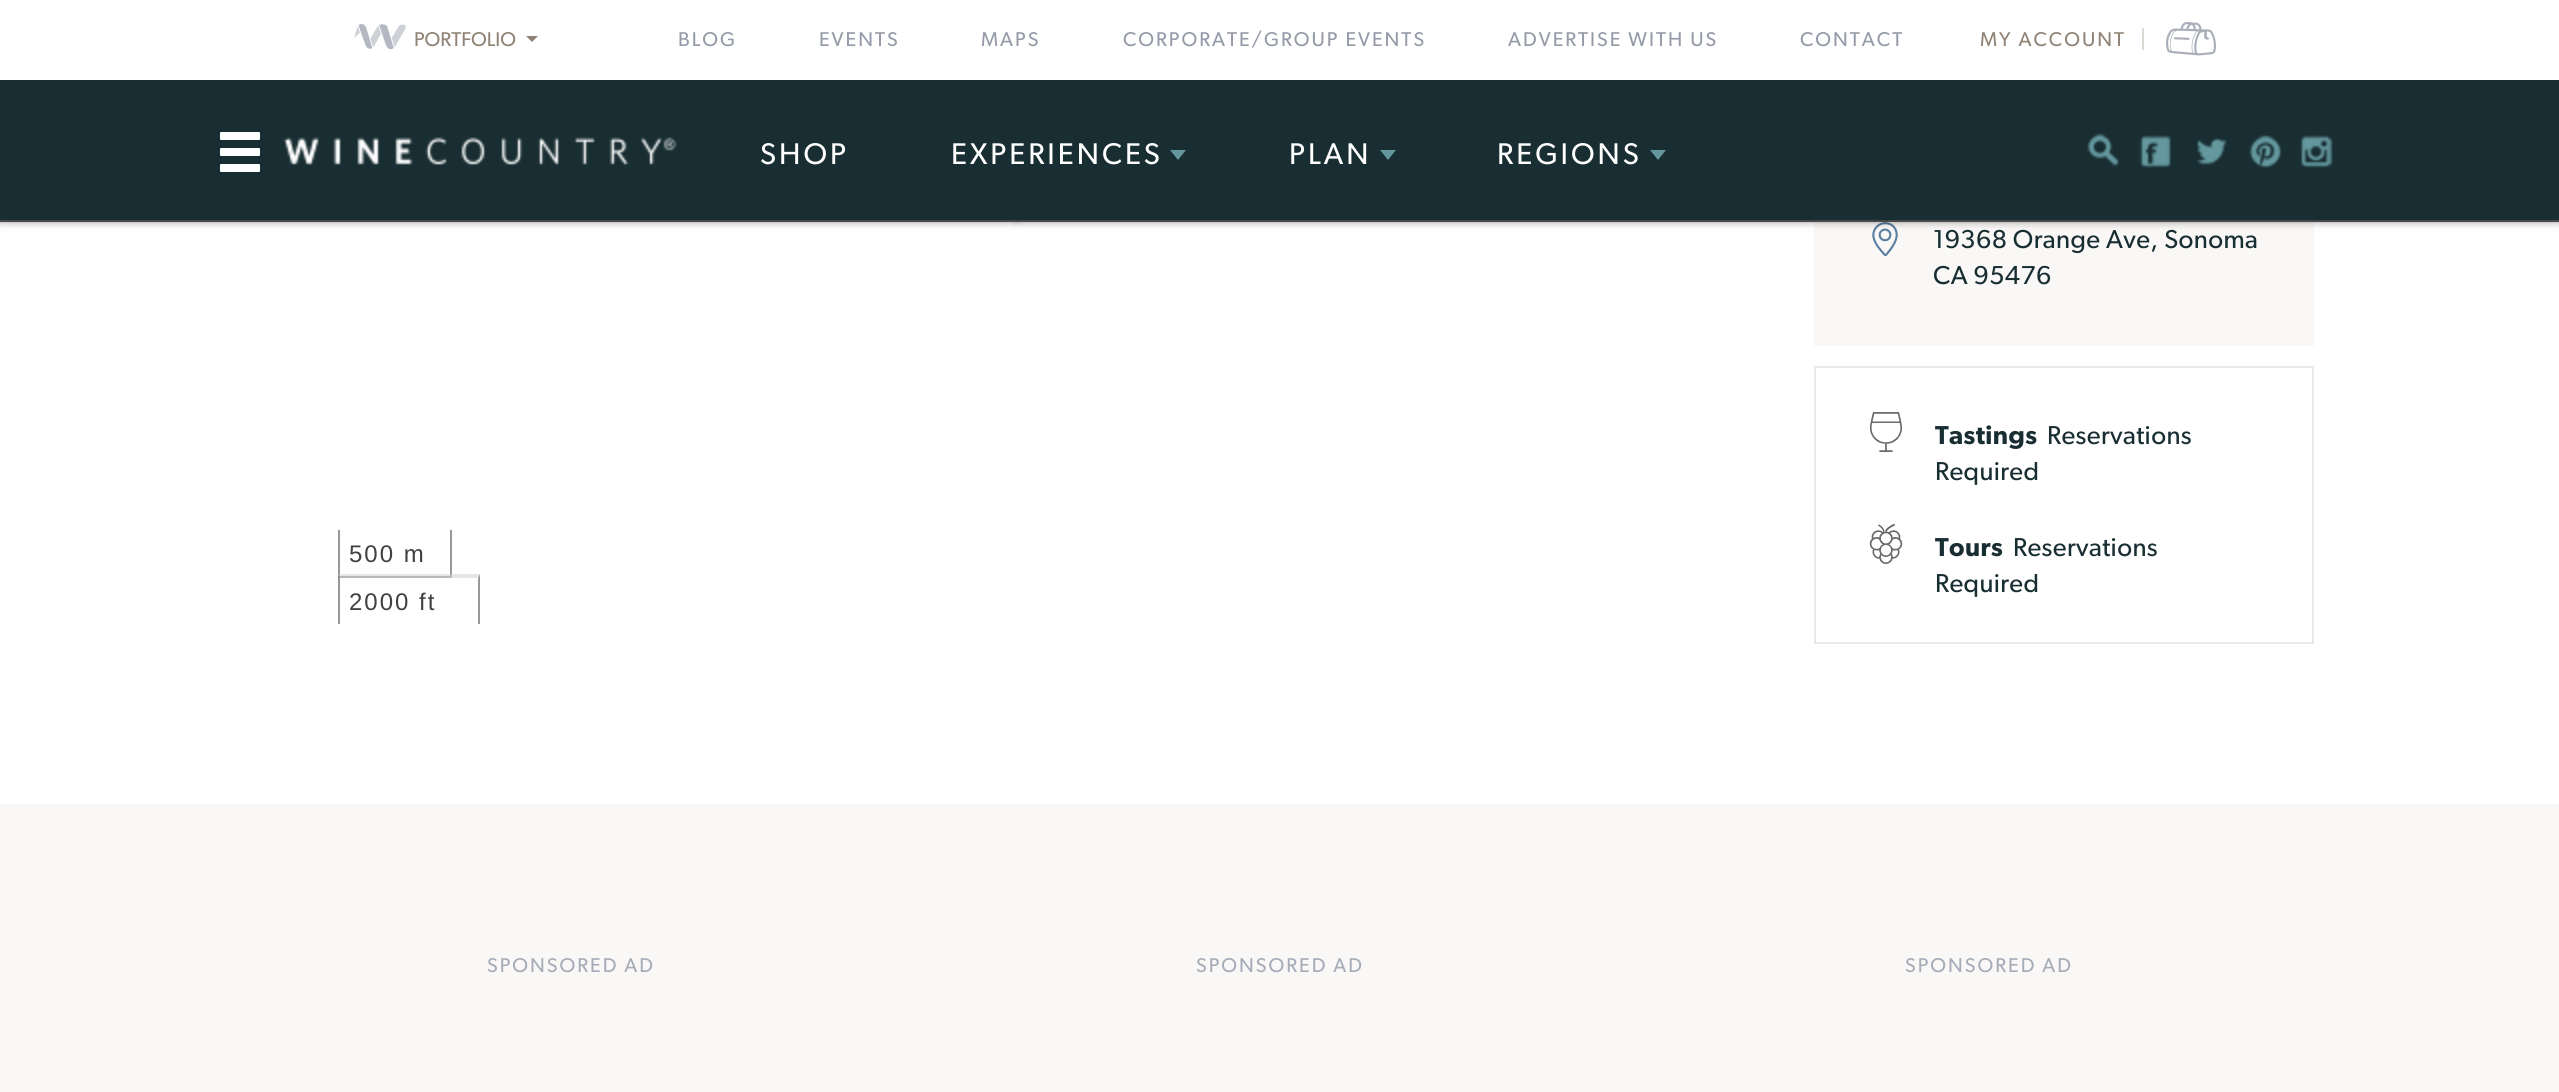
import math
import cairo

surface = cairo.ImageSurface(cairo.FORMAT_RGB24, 2559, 1092)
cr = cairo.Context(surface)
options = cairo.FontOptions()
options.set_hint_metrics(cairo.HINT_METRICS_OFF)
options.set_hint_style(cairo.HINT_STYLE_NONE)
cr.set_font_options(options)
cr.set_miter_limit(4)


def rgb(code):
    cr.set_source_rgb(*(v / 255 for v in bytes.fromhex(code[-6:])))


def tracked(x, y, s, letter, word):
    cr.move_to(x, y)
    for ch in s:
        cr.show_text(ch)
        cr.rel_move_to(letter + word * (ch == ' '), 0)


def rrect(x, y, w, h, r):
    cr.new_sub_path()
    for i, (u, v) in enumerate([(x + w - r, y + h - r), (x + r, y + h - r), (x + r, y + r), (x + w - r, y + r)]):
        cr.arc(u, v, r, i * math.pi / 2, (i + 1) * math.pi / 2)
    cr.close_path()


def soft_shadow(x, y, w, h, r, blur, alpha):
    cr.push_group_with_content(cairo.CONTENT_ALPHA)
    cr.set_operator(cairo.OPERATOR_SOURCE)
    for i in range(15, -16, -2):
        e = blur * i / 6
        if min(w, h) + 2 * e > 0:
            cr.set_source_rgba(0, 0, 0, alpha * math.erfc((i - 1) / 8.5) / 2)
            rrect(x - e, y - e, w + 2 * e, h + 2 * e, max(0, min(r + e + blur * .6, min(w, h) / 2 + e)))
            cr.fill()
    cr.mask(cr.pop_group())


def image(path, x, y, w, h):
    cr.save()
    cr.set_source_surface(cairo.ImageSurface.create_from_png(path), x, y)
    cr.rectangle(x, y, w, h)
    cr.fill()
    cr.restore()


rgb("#ffffff")
cr.paint()
image("img/10.png", 1011, 222, 13, 4)
rgb("#f9f8f7")
cr.rectangle(1814, 222, 500, 124)
cr.fill()
image("img/11.png", 1872, 222, 26, 35)
rgb("#000000")
soft_shadow(0, 0, 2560, 222, 0, 4, 0.4)
rgb("#ffffff")
cr.rectangle(0, 0, 2559, 80)
cr.fill()
rgb("#484848")
cr.rectangle(0, 220, 2559, 2)
cr.fill()
image("img/1.png", 354, 24, 52, 26)
rgb("#908375")
cr.new_path()
cr.move_to(526, 36)
cr.line_to(538, 36)
cr.line_to(532, 42)
cr.close_path()
cr.fill()
rgb("#ddd9d5")
cr.rectangle(2142, 28, 2, 22)
cr.fill()
image("img/2.png", 2166, 22, 50, 34)
rgb("#192e32")
cr.rectangle(0, 80, 2559, 140)
cr.fill()
image("img/3.png", 220, 132, 40, 40)
image("img/4.png", 283, 137, 394, 29)
rgb("#64969d")
cr.new_path()
cr.move_to(1170, 150)
cr.line_to(1186, 150)
cr.line_to(1178, 160)
cr.close_path()
cr.fill()
cr.new_path()
cr.move_to(1380, 150)
cr.line_to(1396, 150)
cr.line_to(1388, 160)
cr.close_path()
cr.fill()
cr.new_path()
cr.move_to(1650, 150)
cr.line_to(1666, 150)
cr.line_to(1658, 160)
cr.close_path()
cr.fill()
image("img/5.png", 2087, 133, 32, 34)
image("img/6.png", 2139, 135, 32, 34)
image("img/7.png", 2196, 137, 31, 28)
image("img/8.png", 2249, 135, 33, 34)
image("img/9.png", 2300, 135, 33, 33)
rgb("#999999")
cr.new_path()
cr.move_to(452, 530)
cr.line_to(452, 578)
cr.line_to(450, 576)
cr.line_to(450, 530)
cr.close_path()
cr.fill()
cr.set_source_rgba(0, 0, 0, 0.4)
cr.new_path()
cr.move_to(452, 578)
cr.line_to(338, 578)
cr.line_to(340, 576)
cr.line_to(450, 576)
cr.close_path()
cr.fill()
cr.new_path()
cr.move_to(338, 578)
cr.line_to(338, 530)
cr.line_to(340, 530)
cr.line_to(340, 576)
cr.close_path()
cr.fill()
cr.set_source_rgba(1, 1, 1, 0.5)
cr.rectangle(338, 574, 114, 4)
cr.fill()
cr.set_source_rgba(0, 0, 0, 0.1)
cr.new_path()
cr.move_to(338, 574)
cr.line_to(480, 574)
cr.line_to(478, 578)
cr.line_to(340, 578)
cr.close_path()
cr.fill()
cr.set_source_rgba(0, 0, 0, 0.4)
cr.new_path()
cr.move_to(480, 574)
cr.line_to(480, 624)
cr.line_to(478, 624)
cr.line_to(478, 578)
cr.close_path()
cr.fill()
cr.new_path()
cr.move_to(338, 624)
cr.line_to(338, 574)
cr.line_to(340, 578)
cr.line_to(340, 624)
cr.close_path()
cr.fill()
cr.rectangle(1815, 367, 498, 276)
rgb("#ebe8e6")
cr.stroke()
image("img/12.png", 1869, 412, 34, 40)
image("img/13.png", 1869, 524, 34, 40)
rgb("#f9f8f7")
cr.rectangle(0, 804, 2559, 288)
cr.fill()
cr.select_font_face("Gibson")
cr.set_font_size(20)
rgb("#908375")
cr.move_to(414, 46)
cr.show_text("PORTFOLIO")
rgb("#949aa8")
for x, y, s in [
    (678, 46, "BLOG"),
    (819, 46, "EVENTS"),
    (981, 46, "MAPS"),
    (1123, 46, "CORPORATE/GROUP EVENTS"),
    (1508, 46, "ADVERTISE WITH US"),
    (1800, 46, "CONTACT"),
]:
    tracked(x, y, s, 2, 0)
rgb("#908375")
tracked(1980, 46, "MY ACCOUNT", 2, 0)
cr.set_font_size(30)
rgb("#ffffff")
for x, y, s in [
    (760, 164, "SHOP"),
    (951, 164, "EXPERIENCES"),
    (1289, 164, "PLAN"),
    (1497, 164, "REGIONS"),
]:
    tracked(x, y, s, 3, 0)
cr.select_font_face("Liberation Sans")
cr.set_font_size(24)
rgb("#404040")
tracked(349, 562, "500 m", 2, 0)
tracked(349, 610, "2000 ft", 2, 0)
cr.select_font_face("Gibson")
cr.set_font_size(26)
rgb("#192e32")
tracked(1933, 248, "19368 Orange Ave, Sonoma", 0.4, 0)
tracked(1933, 284, "CA 95476", 0.4, 0)
cr.select_font_face("Gibson SemiBold")
tracked(1935, 444, "Tastings", 0.4, 0)
cr.select_font_face("Gibson")
tracked(2047, 444, "Reservations", 0.4, 0)
tracked(1935, 480, "Required", 0.4, 0)
cr.select_font_face("Gibson SemiBold")
tracked(1935, 556, "Tours", 0.4, 0)
cr.select_font_face("Gibson")
tracked(2013, 556, "Reservations", 0.4, 0)
tracked(1935, 592, "Required", 0.4, 0)
cr.set_font_size(20)
rgb("#a5abb7")
for x, y, s in [
    (487, 972, "SPONSORED AD"),
    (1196, 972, "SPONSORED AD"),
    (1905, 972, "SPONSORED AD"),
]:
    tracked(x, y, s, 2, 0)
surface.write_to_png("page.png")
